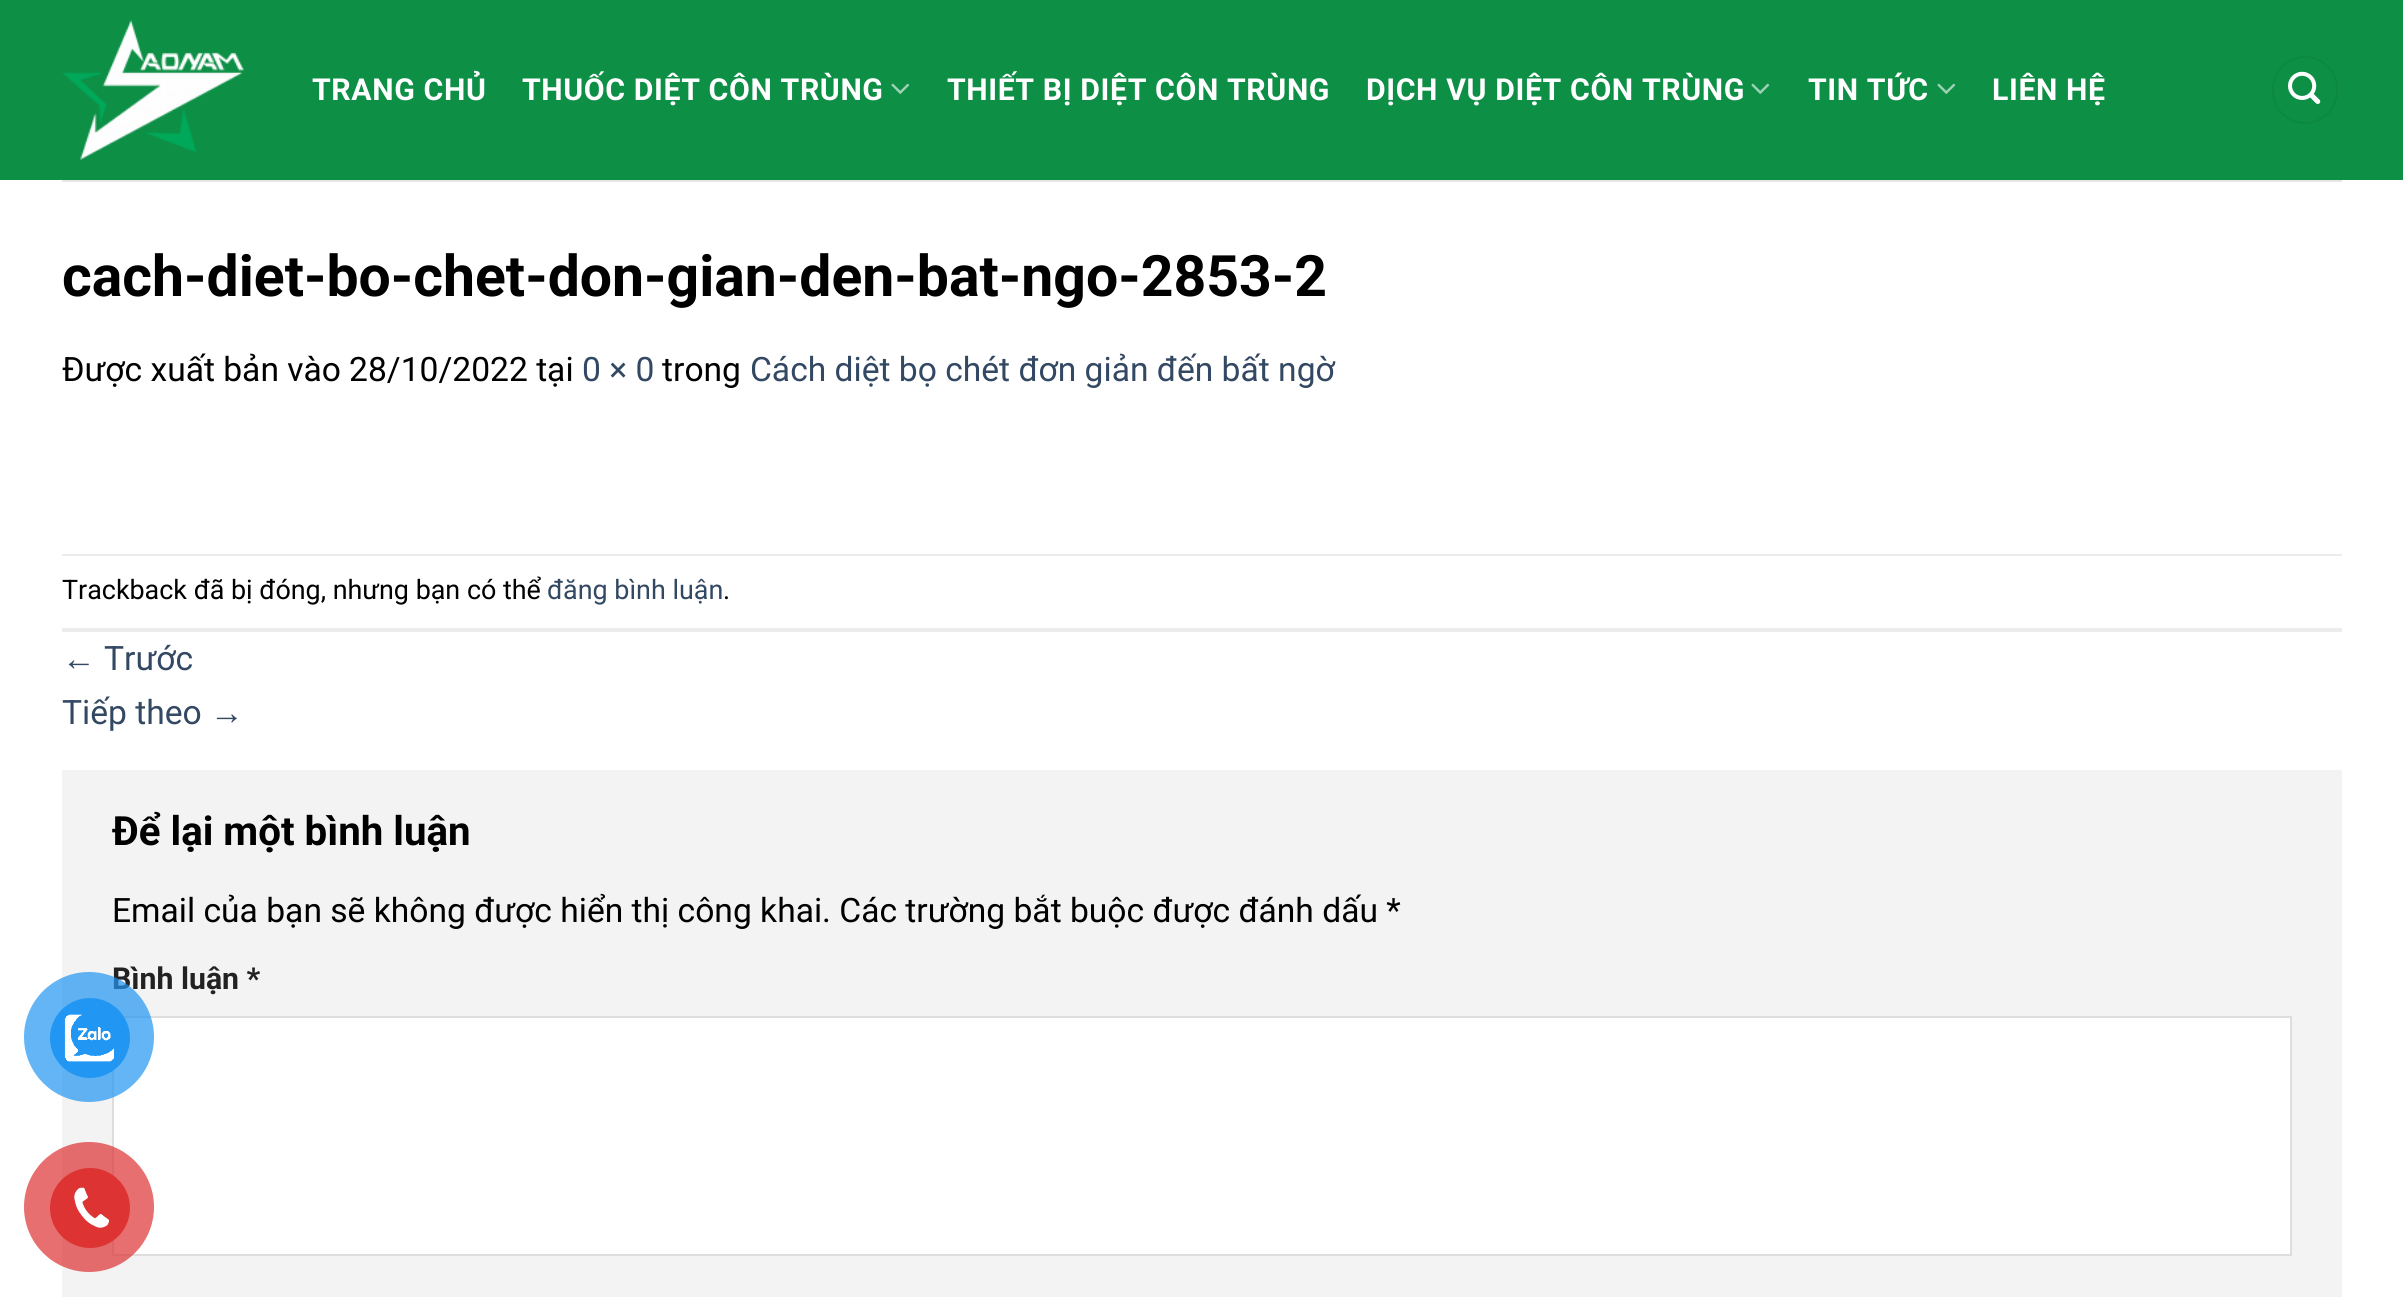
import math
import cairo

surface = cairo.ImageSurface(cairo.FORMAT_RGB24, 2403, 1297)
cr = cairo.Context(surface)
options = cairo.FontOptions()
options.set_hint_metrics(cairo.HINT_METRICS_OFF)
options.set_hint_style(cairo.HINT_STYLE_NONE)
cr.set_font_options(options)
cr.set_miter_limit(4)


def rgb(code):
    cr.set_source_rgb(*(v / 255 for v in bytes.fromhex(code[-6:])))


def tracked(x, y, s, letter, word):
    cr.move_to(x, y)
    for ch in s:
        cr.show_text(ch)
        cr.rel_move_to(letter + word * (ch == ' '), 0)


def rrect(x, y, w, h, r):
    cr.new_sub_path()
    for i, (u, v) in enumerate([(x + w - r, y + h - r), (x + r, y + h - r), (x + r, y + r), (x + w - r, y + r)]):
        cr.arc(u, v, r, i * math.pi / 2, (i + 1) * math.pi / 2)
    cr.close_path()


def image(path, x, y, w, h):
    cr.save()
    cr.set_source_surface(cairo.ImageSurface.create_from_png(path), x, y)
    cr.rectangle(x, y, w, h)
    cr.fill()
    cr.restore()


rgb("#ffffff")
cr.paint()
rgb("#0d8f46")
cr.rectangle(0, 0, 2403, 180)
cr.fill()
image("img/1.png", 62, 20, 182, 140)
image("img/2.png", 891, 83, 19, 11)
image("img/2.png", 1751, 83, 19, 11)
image("img/2.png", 1937, 83, 19, 11)
rrect(2273, 57, 64, 66, 32)
rgb("#0c8843")
cr.stroke()
image("img/3.png", 2288, 71, 33, 33)
for x, y, w, h, color in [
    (62, 180, 2280, 2, "#e6e6e6"),
    (62, 554, 2280, 2, "#ececec"),
    (62, 628, 2280, 4, "#ececec"),
    (62, 770, 2280, 527, "#f3f3f3"),
]:
    rgb(color)
    cr.rectangle(x, y, w, h)
    cr.fill()
rgb("#ffffff")
cr.rectangle(113, 1017, 2178, 238)
cr.fill_preserve()
rgb("#dddddd")
cr.stroke()
cr.set_source_rgba(0.867, 0.2, 0.2, 0.7)
cr.arc(89, 1207, 65, 0, 2 * math.pi)
cr.fill()
rgb("#dd3333")
cr.arc(90, 1208, 40, 0, 2 * math.pi)
cr.fill()
image("img/5.png", 74, 1187, 35, 41)
cr.select_font_face("Roboto", cairo.FONT_SLANT_NORMAL, cairo.FONT_WEIGHT_BOLD)
cr.set_font_size(30.25)
rgb("#ffffff")
for x, y, s in [
    (312, 100, "TRANG CHỦ"),
    (522, 100, "THUỐC DIỆT CÔN TRÙNG"),
    (947, 100, "THIẾT BỊ DIỆT CÔN TRÙNG"),
    (1366, 100, "DỊCH VỤ DIỆT CÔN TRÙNG"),
    (1808, 100, "TIN TỨC"),
    (1992, 100, "LIÊN HỆ"),
]:
    tracked(x, y, s, 0.6, 0)
cr.set_font_size(57.1)
rgb("#000000")
cr.move_to(62, 296)
cr.show_text("cach-diet-bo-chet-don-gian-den-bat-ngo-2853-2")
cr.select_font_face("Roboto")
cr.set_font_size(33.6)
cr.move_to(62, 381)
cr.show_text("Được xuất bản vào")
cr.move_to(349, 381)
cr.show_text("28/10/2022 tại")
rgb("#334862")
cr.move_to(582, 381)
cr.show_text("0 × 0")
rgb("#000000")
cr.move_to(662, 381)
cr.show_text("trong")
rgb("#334862")
cr.move_to(750, 381)
cr.show_text("Cách diệt bọ chét đơn giản đến bất ngờ")
cr.set_font_size(26.9)
rgb("#000000")
cr.move_to(62, 599)
cr.show_text("Trackback đã bị đóng, nhưng bạn có thể")
rgb("#334862")
cr.move_to(547, 599)
cr.show_text("đăng bình luận")
rgb("#000000")
cr.move_to(723, 599)
cr.show_text(".")
cr.select_font_face("Liberation Sans")
cr.set_font_size(33.6)
rgb("#334862")
cr.move_to(62, 670)
cr.show_text("←")
cr.select_font_face("Roboto")
cr.move_to(104, 670)
cr.show_text("Trước")
cr.move_to(62, 724)
cr.show_text("Tiếp theo")
cr.select_font_face("Liberation Sans")
cr.move_to(210, 724)
cr.show_text("→")
cr.select_font_face("Roboto", cairo.FONT_SLANT_NORMAL, cairo.FONT_WEIGHT_BOLD)
cr.set_font_size(40.25)
rgb("#000000")
cr.move_to(112, 845)
cr.show_text("Để lại một bình luận")
cr.select_font_face("Roboto")
cr.set_font_size(33.6)
cr.move_to(112, 922)
cr.show_text("Email của bạn sẽ không được hiển thị công khai. Các trường bắt buộc được đánh dấu *")
cr.select_font_face("Roboto", cairo.FONT_SLANT_NORMAL, cairo.FONT_WEIGHT_BOLD)
cr.set_font_size(30.25)
rgb("#222222")
cr.move_to(112, 989)
cr.show_text("Bình luận *")
cr.set_source_rgba(0.129, 0.588, 0.953, 0.7)
cr.new_path()
cr.arc(89, 1037, 65, 0, 2 * math.pi)
cr.fill()
rgb("#2196f3")
cr.arc(90, 1038, 40, 0, 2 * math.pi)
cr.fill()
image("img/4.png", 64, 1014, 50, 48)
surface.write_to_png("page.png")
